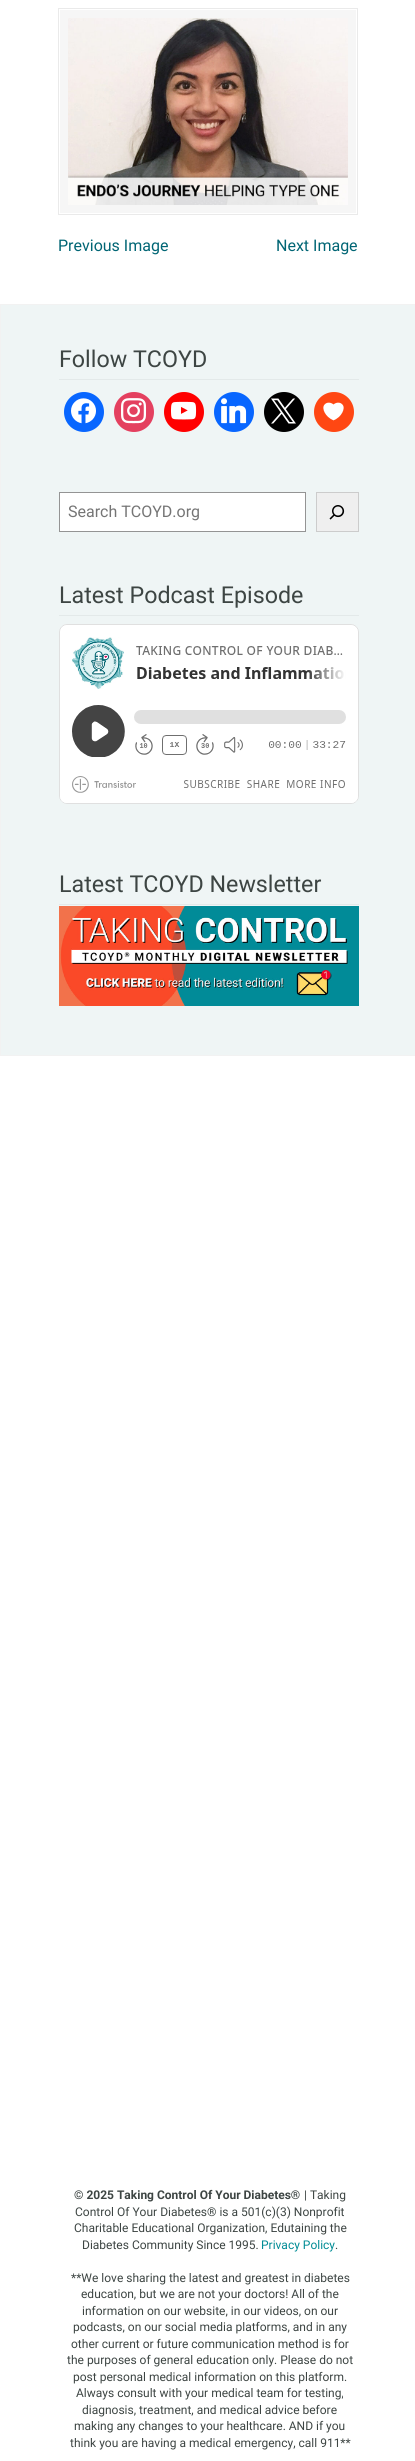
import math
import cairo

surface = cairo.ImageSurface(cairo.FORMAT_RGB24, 415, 2461)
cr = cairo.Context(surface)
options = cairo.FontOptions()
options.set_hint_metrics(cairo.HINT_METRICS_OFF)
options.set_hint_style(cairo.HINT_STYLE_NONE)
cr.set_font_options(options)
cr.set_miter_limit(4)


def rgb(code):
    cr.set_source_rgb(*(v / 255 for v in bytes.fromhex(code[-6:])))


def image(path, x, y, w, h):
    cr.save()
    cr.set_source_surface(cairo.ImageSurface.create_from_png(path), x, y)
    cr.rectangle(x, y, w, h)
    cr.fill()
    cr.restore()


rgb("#ffffff")
cr.paint()
rgb("#f6f6f6")
cr.rectangle(60, 10, 296, 203)
cr.fill()
cr.rectangle(58.5, 8.5, 299, 206)
rgb("#eaeaea")
cr.set_line_width(1)
cr.stroke()
image("img/1.png", 68, 18, 280, 187)
rgb("#eff5f5")
cr.rectangle(0.5, 304.5, 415, 751)
cr.fill_preserve()
rgb("#f2f2f2")
cr.stroke()
rgb("#e3e9e9")
cr.rectangle(59, 379, 300, 1)
cr.fill()
rgb("#0866ff")
cr.arc(84, 412, 20, 0, 2 * math.pi)
cr.fill()
image("img/2.png", 71, 398, 25, 26)
rgb("#e4405f")
cr.arc(134, 412, 20, 0, 2 * math.pi)
cr.fill()
image("img/3.png", 121, 398, 26, 26)
rgb("#ff0000")
cr.arc(184, 412, 20, 0, 2 * math.pi)
cr.fill()
image("img/4.png", 171, 401, 26, 19)
rgb("#0866ff")
cr.arc(234, 412, 20, 0, 2 * math.pi)
cr.fill()
image("img/5.png", 221, 398, 26, 26)
rgb("#000000")
cr.arc(284, 412, 20, 0, 2 * math.pi)
cr.fill()
image("img/6.png", 271, 398, 25, 26)
rgb("#ff4713")
cr.arc(334, 412, 20, 0, 2 * math.pi)
cr.fill()
image("img/7.png", 323, 402, 21, 19)
rgb("#ffffff")
cr.rectangle(59.5, 492.5, 246, 39)
cr.fill_preserve()
rgb("#949494")
cr.stroke()
rgb("#efefef")
cr.rectangle(316.5, 492.5, 42, 39)
cr.fill_preserve()
rgb("#cccccc")
cr.stroke()
image("img/8.png", 329, 505, 16, 15)
rgb("#e3e9e9")
cr.rectangle(59, 615, 300, 1)
cr.fill()
image("img/9.png", 59, 624, 300, 180)
cr.rectangle(59, 904, 300, 1)
cr.fill()
image("img/10.png", 59, 906, 300, 100)
cr.select_font_face("Roboto")
cr.set_font_size(16)
rgb("#006574")
cr.move_to(58, 251)
cr.show_text("Previous Image")
cr.move_to(276, 251)
cr.show_text("Next Image")
cr.set_font_size(23.25)
rgb("#3d4543")
cr.move_to(59, 367)
cr.show_text("Follow TCOYD")
cr.set_font_size(16)
rgb("#757575")
cr.move_to(68, 517)
cr.show_text("Search TCOYD.org")
cr.set_font_size(23.25)
rgb("#3d4543")
cr.move_to(59, 603)
cr.show_text("Latest Podcast Episode")
cr.move_to(59, 892)
cr.show_text("Latest TCOYD Newsletter")
cr.select_font_face("Roboto", cairo.FONT_SLANT_NORMAL, cairo.FONT_WEIGHT_BOLD)
cr.set_font_size(12)
cr.move_to(74, 2199)
cr.show_text("© 2025 Taking Control Of Your Diabetes®")
cr.select_font_face("Roboto")
for x, y, s in [
    (304, 2199, "| Taking"),
    (75, 2216, "Control Of Your Diabetes® is a 501(c)(3) Nonprofit"),
    (74, 2232, "Charitable Educational Organization, Edutaining the"),
    (82, 2249, "Diabetes Community Since 1995."),
]:
    cr.move_to(x, y)
    cr.show_text(s)
rgb("#008c95")
cr.move_to(261, 2249)
cr.show_text("Privacy Policy")
rgb("#3d4543")
for x, y, s in [
    (335, 2249, "."),
    (71, 2282, "**We love sharing the latest and greatest in diabetes"),
    (81, 2298, "education, but we are not your doctors! All of the"),
    (82, 2315, "information on our website, in our videos, on our"),
    (73, 2331, "podcasts, on our social media platforms, and in any"),
    (71, 2348, "other current or future communication method is for"),
    (67, 2364, "the purposes of general education only. Please do not"),
    (73, 2381, "post personal medical information on this platform."),
    (76, 2397, "Always consult with your medical team for testing,"),
    (82, 2414, "diagnosis, treatment, and medical advice before"),
    (74, 2430, "making any changes to your healthcare. AND if you"),
    (70, 2447, "think you are having a medical emergency, call 911**"),
]:
    cr.move_to(x, y)
    cr.show_text(s)
surface.write_to_png("page.png")
